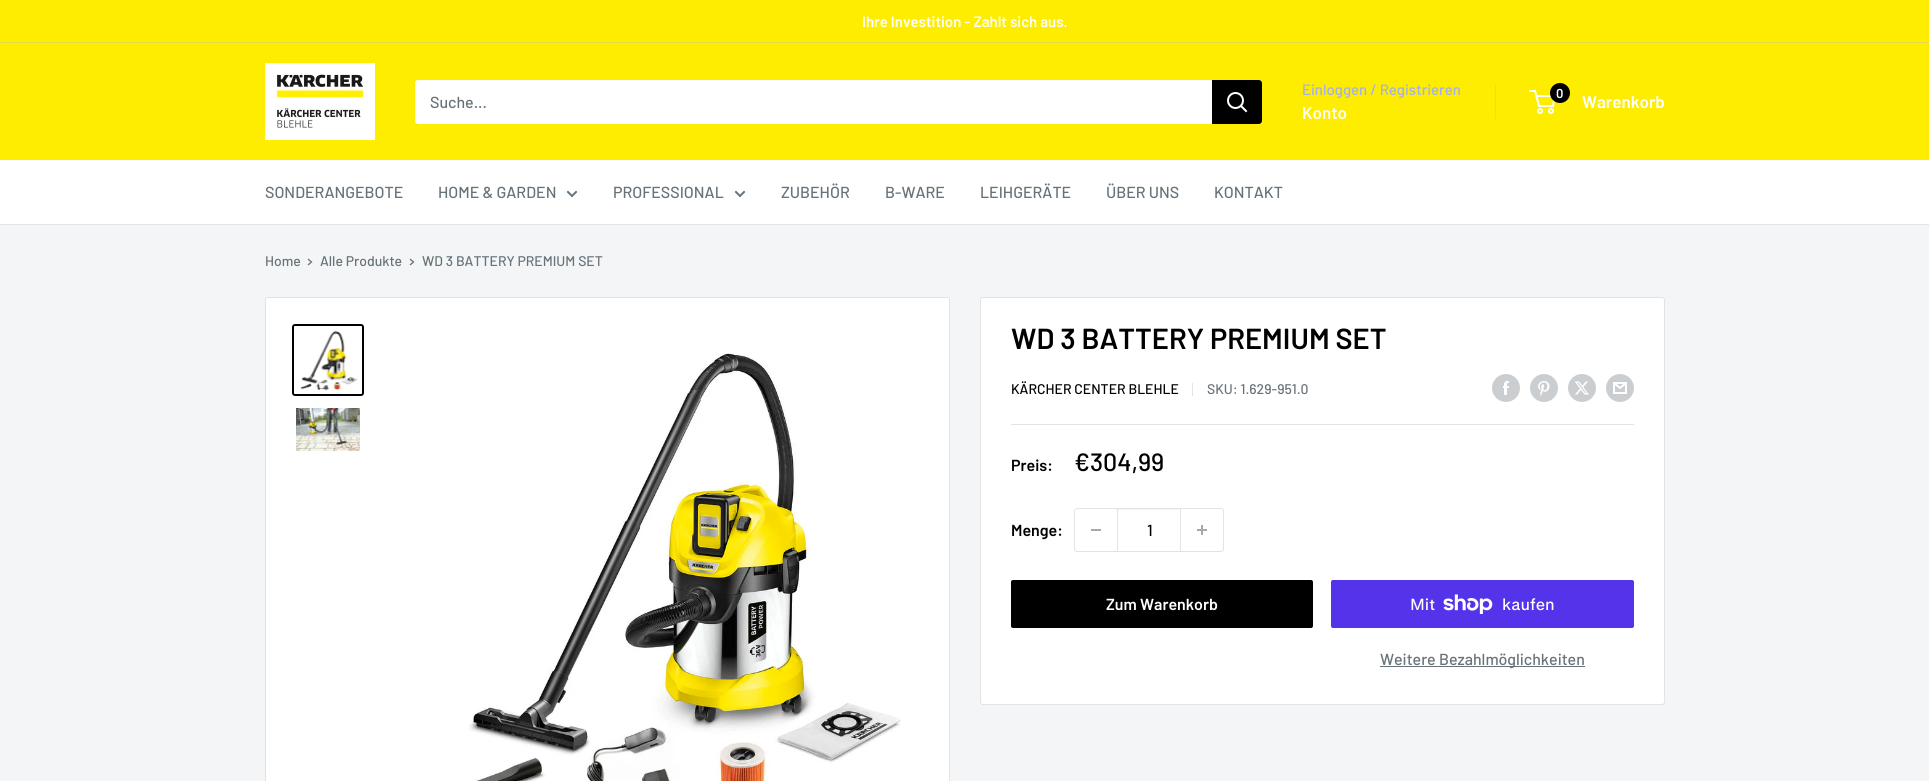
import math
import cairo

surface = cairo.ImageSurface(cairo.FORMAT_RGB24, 1929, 781)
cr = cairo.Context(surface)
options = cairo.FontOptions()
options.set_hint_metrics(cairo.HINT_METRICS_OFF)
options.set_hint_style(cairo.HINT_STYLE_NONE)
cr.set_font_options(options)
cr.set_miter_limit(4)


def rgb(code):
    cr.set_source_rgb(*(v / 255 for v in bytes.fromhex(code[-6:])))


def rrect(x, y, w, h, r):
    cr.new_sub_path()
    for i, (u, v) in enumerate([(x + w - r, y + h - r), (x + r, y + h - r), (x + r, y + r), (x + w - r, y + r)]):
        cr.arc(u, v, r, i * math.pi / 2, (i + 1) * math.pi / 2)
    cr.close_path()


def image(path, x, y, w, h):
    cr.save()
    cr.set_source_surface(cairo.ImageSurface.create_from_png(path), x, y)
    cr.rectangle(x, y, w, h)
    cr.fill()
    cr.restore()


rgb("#f3f5f6")
cr.paint()
for x, y, w, h, color in [
    (0, 0, 1929, 42, "#ffed00"),
    (0, 42, 1929, 1, "#e3da48"),
    (0, 43, 1929, 117, "#ffed00"),
]:
    rgb(color)
    cr.rectangle(x, y, w, h)
    cr.fill()
image("img/1.png", 265, 63, 110, 77)
rgb("#ffffff")
rrect(415, 80, 847, 44, 3)
cr.fill()
rgb("#000000")
cr.new_path()
cr.move_to(1212, 80)
cr.line_to(1259, 80)
cr.curve_to(1260.5, 80, 1262, 81.5, 1262, 83)
cr.line_to(1262, 121)
cr.curve_to(1262, 122.5, 1260.5, 124, 1259, 124)
cr.line_to(1212, 124)
cr.close_path()
cr.fill()
cr.new_path()
cr.move_to(1246, 111)
cr.line_to(1241, 106)
rgb("#ffffff")
cr.set_line_cap(cairo.LINE_CAP_SQUARE)
cr.stroke()
cr.arc(1235.5, 100.5, 7.5, 0, 2 * math.pi)
cr.set_line_cap(cairo.LINE_CAP_BUTT)
cr.stroke()
rgb("#e3da48")
cr.rectangle(1495, 85, 1, 34)
cr.fill()
cr.arc(1540, 111, 2, 0, 2 * math.pi)
rgb("#ffffff")
cr.stroke()
cr.arc(1551, 111, 2, 0, 2 * math.pi)
cr.stroke()
cr.new_path()
cr.move_to(1536.5, 96)
cr.line_to(1554.5, 96)
cr.line_to(1553, 106)
cr.line_to(1539, 106)
cr.line_to(1535, 91)
cr.line_to(1529, 91)
cr.stroke()
rgb("#000000")
cr.arc(1560, 93, 10, 0, 2 * math.pi)
cr.fill()
rgb("#ffffff")
cr.rectangle(0, 160, 1929, 64)
cr.fill()
rgb("#e1e3e4")
cr.rectangle(0, 224, 1929, 1)
cr.fill()
cr.new_path()
cr.move_to(576, 192)
cr.line_to(572, 196)
cr.line_to(568, 192)
rgb("#677279")
cr.set_line_cap(cairo.LINE_CAP_SQUARE)
cr.stroke()
cr.new_path()
cr.move_to(744, 192)
cr.line_to(740, 196)
cr.line_to(736, 192)
cr.stroke()
cr.new_path()
cr.move_to(308.5, 259.5)
cr.line_to(311.5, 262)
cr.line_to(308.5, 264.5)
cr.set_line_width(1.3)
cr.stroke()
cr.new_path()
cr.move_to(410.5, 259.5)
cr.line_to(413.5, 262)
cr.line_to(410.5, 264.5)
cr.stroke()
rgb("#ffffff")
rrect(265.5, 297.5, 684, 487, 2.5)
cr.fill_preserve()
rgb("#e1e3e4")
cr.set_line_width(1)
cr.set_line_cap(cairo.LINE_CAP_BUTT)
cr.stroke()
rrect(293, 325, 70, 70, 2)
rgb("#000000")
cr.set_line_width(2)
cr.stroke()
image("img/2.png", 300, 331, 58, 60)
image("img/3.png", 296, 408, 64, 43)
image("img/4.png", 468, 353, 433, 428)
rgb("#ffffff")
rrect(980.5, 297.5, 684, 407, 2.5)
cr.fill_preserve()
rgb("#e1e3e4")
cr.set_line_width(1)
cr.stroke()
cr.rectangle(1192, 383, 1, 13)
cr.fill()
image("img/5.png", 1492, 374, 28, 28)
image("img/6.png", 1530, 374, 28, 28)
image("img/7.png", 1568, 374, 28, 28)
image("img/8.png", 1606, 374, 28, 28)
cr.rectangle(1011, 424, 623, 1)
cr.fill()
rrect(1074.5, 508.5, 149, 43, 2.5)
cr.stroke()
for x, y, w, h, color in [
    (1091, 529, 10, 2, "#a4aaaf"),
    (1118, 509, 62, 1, "#f3f4f4"),
    (1180, 509, 1, 42, "#e1e3e4"),
    (1117, 509, 1, 42, "#e1e3e4"),
]:
    rgb(color)
    cr.rectangle(x, y, w, h)
    cr.fill()
image("img/9.png", 1197, 525, 10, 10)
rgb("#000000")
rrect(1011, 580, 302, 48, 2)
cr.fill()
rgb("#5433eb")
rrect(1331, 580, 303, 48, 2)
cr.fill()
image("img/10.png", 1443, 594, 50, 20)
rgb("#677279")
cr.rectangle(1380, 666, 205, 1)
cr.fill()
cr.select_font_face("Barlow SemiBold")
cr.set_font_size(15)
rgb("#ffffff")
cr.move_to(862, 27)
cr.show_text("Ihre Investition - Zahlt sich aus.")
cr.select_font_face("Barlow Medium")
cr.set_font_size(16)
rgb("#677279")
cr.move_to(430, 108)
cr.show_text("Suche...")
cr.set_font_size(15)
rgb("#a3afef")
cr.move_to(1302, 95)
cr.show_text("Einloggen / Registrieren")
cr.select_font_face("Barlow SemiBold")
cr.set_font_size(17)
rgb("#ffffff")
cr.move_to(1302, 119)
cr.show_text("Konto")
cr.set_font_size(13)
cr.move_to(1556, 98)
cr.show_text("0")
cr.set_font_size(17)
cr.move_to(1582, 108)
cr.show_text("Warenkorb")
cr.select_font_face("Barlow Medium")
cr.set_font_size(16)
rgb("#677279")
for x, y, s in [
    (265, 198, "SONDERANGEBOTE"),
    (438, 198, "HOME & GARDEN"),
    (613, 198, "PROFESSIONAL"),
    (781, 198, "ZUBEHÖR"),
    (885, 198, "B-WARE"),
    (980, 198, "LEIHGERÄTE"),
    (1106, 198, "ÜBER UNS"),
    (1214, 198, "KONTAKT"),
]:
    cr.move_to(x, y)
    cr.show_text(s)
cr.set_font_size(14)
for x, y, s in [
    (265, 266, "Home"),
    (320, 266, "Alle Produkte"),
    (422, 266, "WD 3 BATTERY PREMIUM SET"),
]:
    cr.move_to(x, y)
    cr.show_text(s)
cr.select_font_face("Barlow SemiBold")
cr.set_font_size(29)
rgb("#000000")
cr.move_to(1011, 349)
cr.show_text("WD 3 BATTERY PREMIUM SET")
cr.select_font_face("Barlow Medium")
cr.set_font_size(14)
cr.move_to(1011, 394)
cr.show_text("KÄRCHER CENTER BLEHLE")
rgb("#677279")
cr.move_to(1207, 394)
cr.show_text("SKU: 1.629-951.0")
cr.select_font_face("Barlow SemiBold")
cr.set_font_size(16)
rgb("#000000")
cr.move_to(1011, 471)
cr.show_text("Preis:")
cr.select_font_face("Barlow Medium")
cr.set_font_size(25)
cr.move_to(1074, 471)
cr.show_text("€304,99")
cr.select_font_face("Barlow SemiBold")
cr.set_font_size(16)
cr.move_to(1011, 536)
cr.show_text("Menge:")
cr.select_font_face("Barlow Medium")
cr.move_to(1147, 536)
cr.show_text("1")
cr.select_font_face("Barlow SemiBold")
rgb("#ffffff")
cr.move_to(1106, 610)
cr.show_text("Zum Warenkorb")
cr.select_font_face("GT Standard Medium")
cr.move_to(1410, 610)
cr.show_text("Mit")
cr.move_to(1502, 610)
cr.show_text("kaufen")
cr.select_font_face("Barlow Medium")
rgb("#677279")
cr.move_to(1380, 665)
cr.show_text("Weitere Bezahlmöglichkeiten")
surface.write_to_png("page.png")
